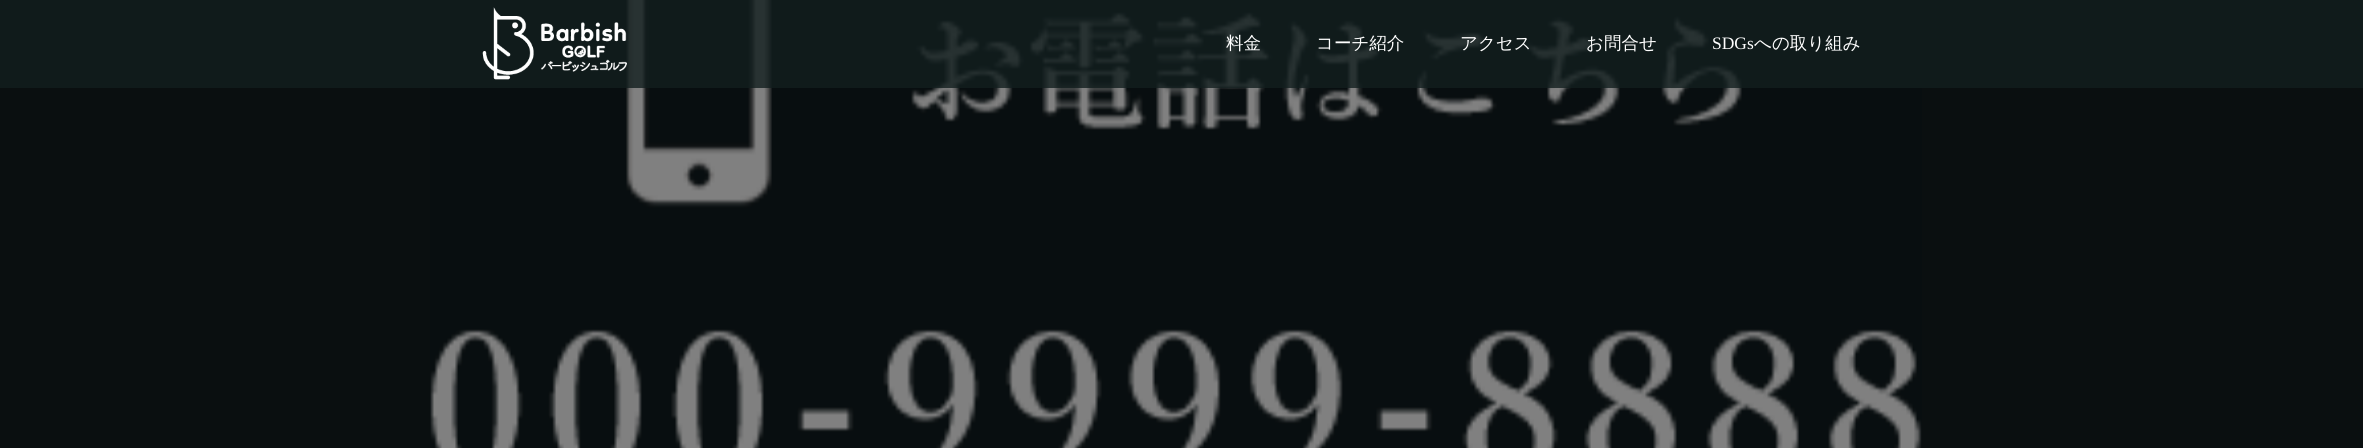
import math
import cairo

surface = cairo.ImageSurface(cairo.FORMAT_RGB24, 2363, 448)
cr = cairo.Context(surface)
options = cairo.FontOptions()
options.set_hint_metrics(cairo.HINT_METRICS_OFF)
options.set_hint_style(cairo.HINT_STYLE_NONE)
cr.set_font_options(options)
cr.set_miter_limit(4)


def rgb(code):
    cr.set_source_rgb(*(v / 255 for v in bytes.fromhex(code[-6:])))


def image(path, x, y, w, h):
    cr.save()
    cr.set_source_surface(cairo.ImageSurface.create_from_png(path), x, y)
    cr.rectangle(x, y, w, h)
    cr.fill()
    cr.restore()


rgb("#0a0f10")
cr.paint()
image("img/1.png", 430, 0, 1492, 448)
cr.set_source_rgba(0.071, 0.118, 0.122, 0.8)
cr.rectangle(0, 0, 2363, 88)
cr.fill()
image("img/2.png", 482, 7, 145, 73)
cr.select_font_face("WenQuanYi Zen Hei Medium")
cr.set_font_size(17.5)
rgb("#ffffff")
for x, y, s in [
    (1226, 49, "料金"),
    (1316, 49, "コーチ紹介"),
    (1460, 49, "アクセス"),
    (1586, 49, "お問合せ"),
]:
    cr.move_to(x, y)
    cr.show_text(s)
cr.select_font_face("Liberation Serif")
cr.move_to(1712, 49)
cr.show_text("SDGs")
cr.select_font_face("WenQuanYi Zen Hei Medium")
cr.move_to(1754, 49)
cr.show_text("への取り組み")
surface.write_to_png("page.png")
